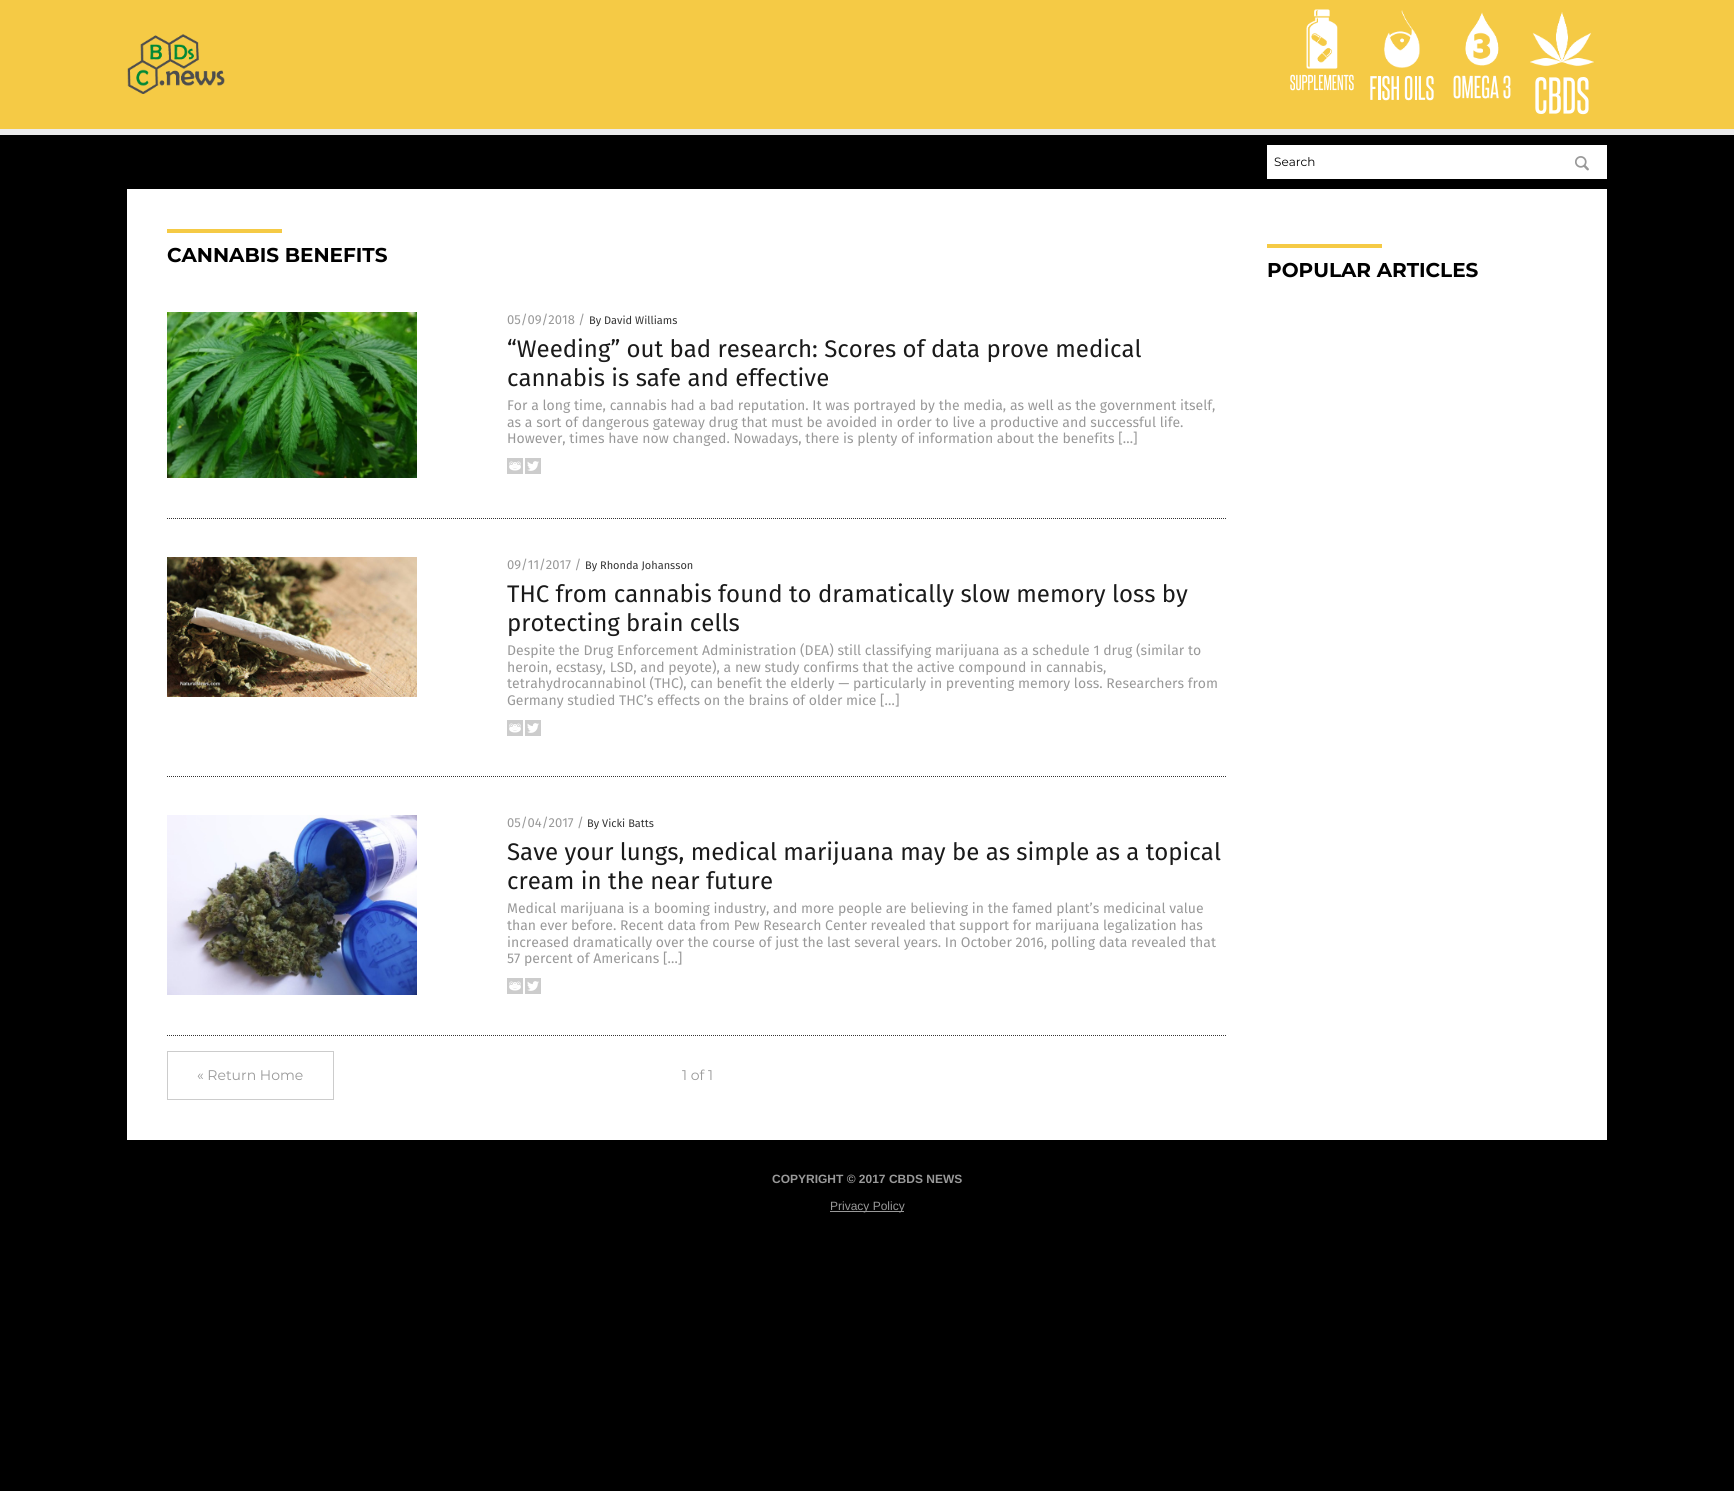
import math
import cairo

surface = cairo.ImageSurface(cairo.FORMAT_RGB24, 1734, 1491)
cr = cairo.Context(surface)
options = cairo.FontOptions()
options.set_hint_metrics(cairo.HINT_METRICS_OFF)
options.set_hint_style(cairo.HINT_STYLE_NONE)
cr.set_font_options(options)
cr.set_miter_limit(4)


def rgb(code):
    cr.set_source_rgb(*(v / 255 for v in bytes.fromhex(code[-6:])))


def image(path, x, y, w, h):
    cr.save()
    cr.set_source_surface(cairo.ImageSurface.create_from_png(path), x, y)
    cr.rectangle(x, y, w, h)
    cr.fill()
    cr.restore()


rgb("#000000")
cr.paint()
rgb("#f5ca45")
cr.rectangle(0, 0, 1734, 129)
cr.fill()
image("img/1.png", 127, 34, 98, 60)
image("img/2.png", 1306, 9, 32, 60)
image("img/3.png", 1290, 74, 64, 17)
image("img/4.png", 1384, 10, 36, 58)
image("img/5.png", 1370, 75, 64, 26)
image("img/6.png", 1465, 12, 34, 54)
image("img/7.png", 1453, 75, 58, 24)
image("img/8.png", 1530, 12, 64, 54)
image("img/9.png", 1535, 77, 54, 38)
rgb("#ececec")
cr.rectangle(0, 129, 1734, 6)
cr.fill()
rgb("#ffffff")
cr.rectangle(1267, 145, 340, 34)
cr.fill()
image("img/10.png", 1575, 156, 14, 15)
cr.rectangle(127, 189, 1480, 951)
cr.fill()
rgb("#f5ca45")
cr.rectangle(167, 229, 115, 4)
cr.fill()
cr.new_path()
cr.move_to(167, 518.5)
cr.line_to(1227, 518.5)
rgb("#343434")
cr.set_line_width(1)
cr.set_dash([1, 1])
cr.stroke()
image("img/11.png", 167, 312, 250, 166)
image("img/12.png", 507, 458, 16, 16)
image("img/13.png", 525, 458, 16, 16)
cr.new_path()
cr.move_to(167, 776.5)
cr.line_to(1227, 776.5)
cr.stroke()
image("img/14.png", 167, 557, 250, 140)
image("img/12.png", 507, 720, 16, 16)
image("img/13.png", 525, 720, 16, 16)
cr.new_path()
cr.move_to(167, 1035.5)
cr.line_to(1227, 1035.5)
cr.stroke()
image("img/15.png", 167, 815, 250, 180)
image("img/12.png", 507, 978, 16, 16)
image("img/13.png", 525, 978, 16, 16)
cr.rectangle(167.5, 1051.5, 166, 48)
rgb("#cccccc")
cr.set_dash([])
cr.stroke()
rgb("#f5ca45")
cr.rectangle(1267, 244, 115, 4)
cr.fill()
rgb("#999999")
cr.rectangle(830, 1211, 74, 1)
cr.fill()
cr.select_font_face("Montserrat")
cr.set_font_size(12)
rgb("#000000")
cr.move_to(1274, 166)
cr.show_text("Search")
cr.select_font_face("Montserrat", cairo.FONT_SLANT_NORMAL, cairo.FONT_WEIGHT_BOLD)
cr.set_font_size(20)
cr.move_to(167, 262)
cr.show_text("CANNABIS BENEFITS")
cr.select_font_face("Fira Sans")
cr.set_font_size(13)
rgb("#999999")
cr.move_to(507, 324)
cr.show_text("05/09/2018 /")
cr.set_font_size(11)
rgb("#333333")
cr.move_to(589, 324)
cr.show_text("By David Williams")
cr.set_font_size(24)
rgb("#1a1a1a")
cr.move_to(507, 357)
cr.show_text("“Weeding” out bad research: Scores of data prove medical")
cr.move_to(507, 386)
cr.show_text("cannabis is safe and effective")
cr.set_font_size(14)
rgb("#999999")
for x, y, s in [
    (507, 410, "For a long time, cannabis had a bad reputation. It was portrayed by the media, as well as the government itself,"),
    (507, 427, "as a sort of dangerous gateway drug that must be avoided in order to live a productive and successful life."),
    (507, 443, "However, times have now changed. Nowadays, there is plenty of information about the benefits […]"),
]:
    cr.move_to(x, y)
    cr.show_text(s)
cr.set_font_size(13)
cr.move_to(507, 569)
cr.show_text("09/11/2017 /")
cr.set_font_size(11)
rgb("#333333")
cr.move_to(585, 569)
cr.show_text("By Rhonda Johansson")
cr.set_font_size(24)
rgb("#1a1a1a")
cr.move_to(507, 602)
cr.show_text("THC from cannabis found to dramatically slow memory loss by")
cr.move_to(507, 631)
cr.show_text("protecting brain cells")
cr.set_font_size(14)
rgb("#999999")
for x, y, s in [
    (507, 655, "Despite the Drug Enforcement Administration (DEA) still classifying marijuana as a schedule 1 drug (similar to"),
    (507, 672, "heroin, ecstasy, LSD, and peyote), a new study confirms that the active compound in cannabis,"),
    (507, 688, "tetrahydrocannabinol (THC), can benefit the elderly — particularly in preventing memory loss. Researchers from"),
    (507, 705, "Germany studied THC’s effects on the brains of older mice […]"),
]:
    cr.move_to(x, y)
    cr.show_text(s)
cr.set_font_size(13)
cr.move_to(507, 827)
cr.show_text("05/04/2017 /")
cr.set_font_size(11)
rgb("#333333")
cr.move_to(587, 827)
cr.show_text("By Vicki Batts")
cr.set_font_size(24)
rgb("#1a1a1a")
cr.move_to(507, 860)
cr.show_text("Save your lungs, medical marijuana may be as simple as a topical")
cr.move_to(507, 889)
cr.show_text("cream in the near future")
cr.set_font_size(14)
rgb("#999999")
for x, y, s in [
    (507, 913, "Medical marijuana is a booming industry, and more people are believing in the famed plant’s medicinal value"),
    (507, 930, "than ever before. Recent data from Pew Research Center revealed that support for marijuana legalization has"),
    (507, 947, "increased dramatically over the course of just the last several years. In October 2016, polling data revealed that"),
    (507, 963, "57 percent of Americans […]"),
]:
    cr.move_to(x, y)
    cr.show_text(s)
cr.select_font_face("Montserrat")
cr.move_to(197, 1080)
cr.show_text("« Return Home")
cr.move_to(682, 1080)
cr.show_text("1 of 1")
cr.select_font_face("Montserrat", cairo.FONT_SLANT_NORMAL, cairo.FONT_WEIGHT_BOLD)
cr.set_font_size(20)
rgb("#000000")
cr.move_to(1267, 277)
cr.show_text("POPULAR ARTICLES")
cr.select_font_face("Liberation Sans", cairo.FONT_SLANT_NORMAL, cairo.FONT_WEIGHT_BOLD)
cr.set_font_size(12)
rgb("#999999")
cr.move_to(772, 1183)
cr.show_text("COPYRIGHT © 2017 CBDS NEWS")
cr.select_font_face("Liberation Sans")
cr.move_to(830, 1210)
cr.show_text("Privacy Policy")
surface.write_to_png("page.png")
